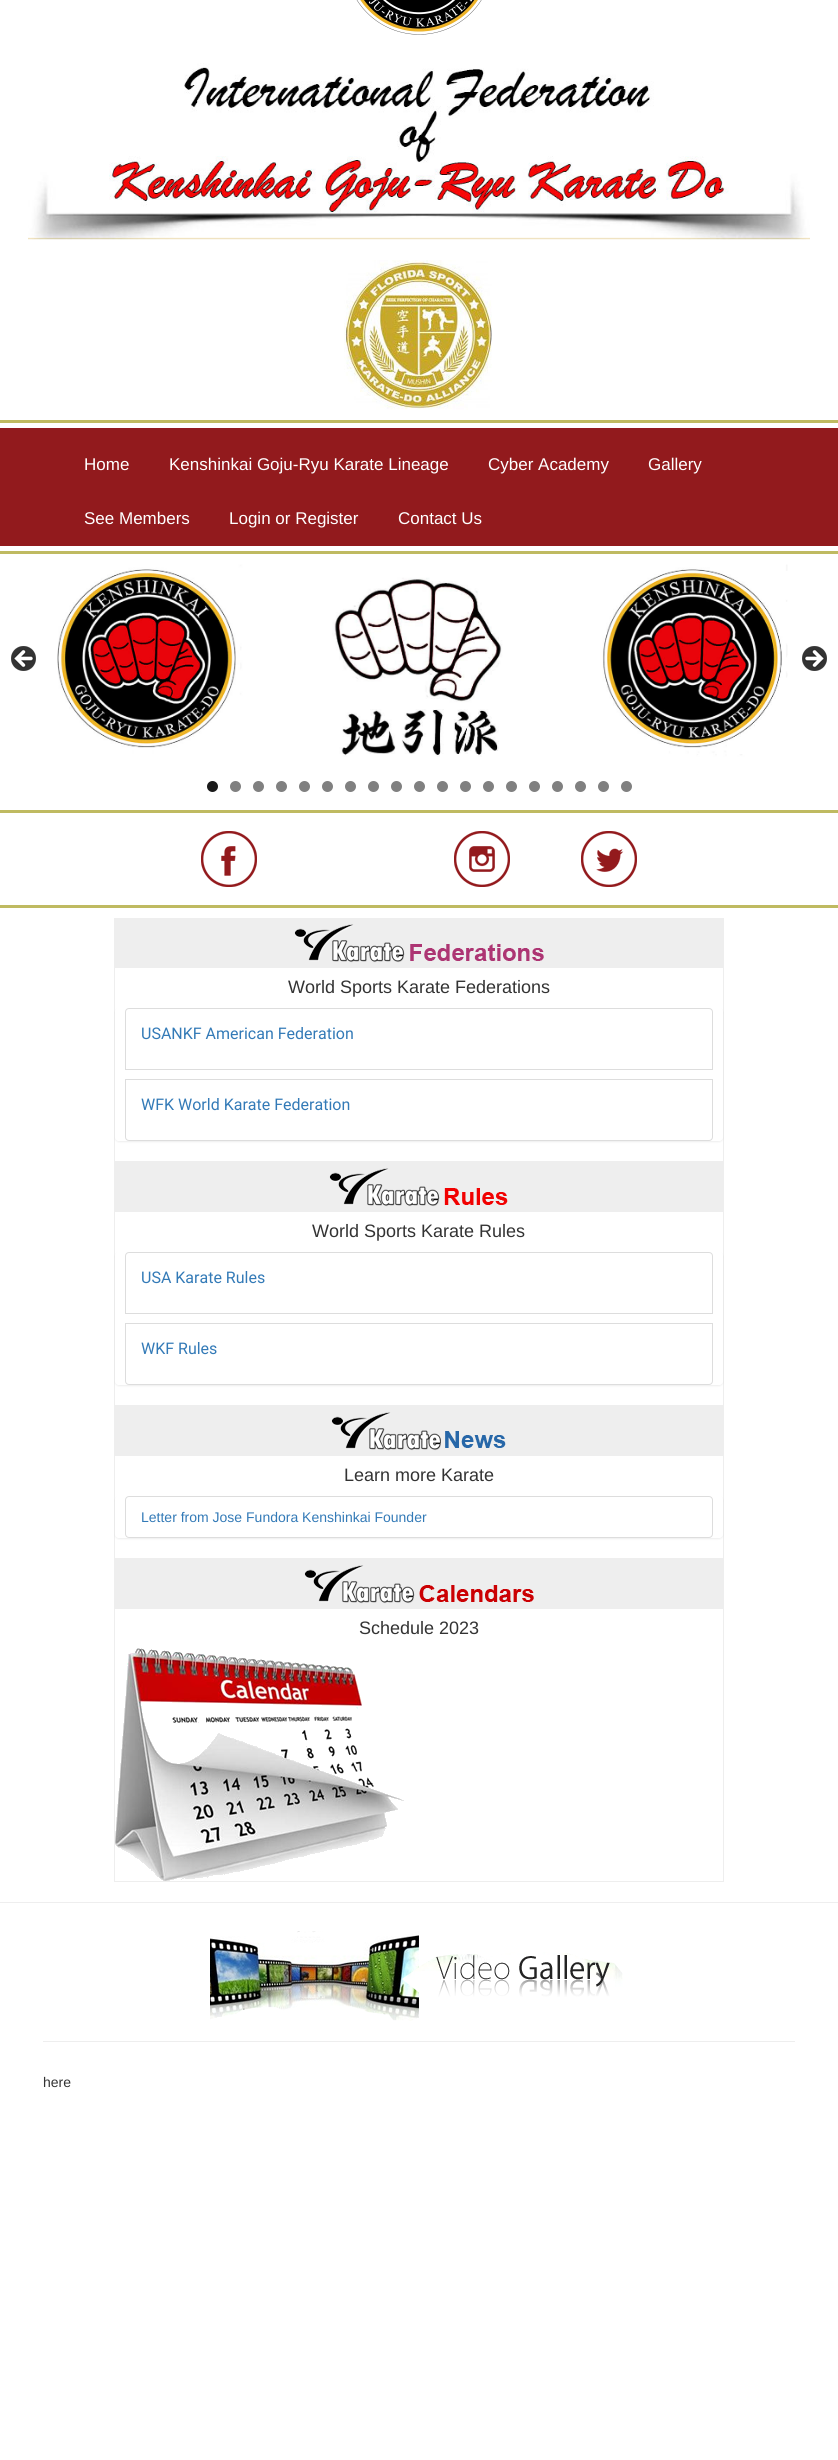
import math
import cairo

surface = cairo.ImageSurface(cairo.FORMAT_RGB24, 838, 2460)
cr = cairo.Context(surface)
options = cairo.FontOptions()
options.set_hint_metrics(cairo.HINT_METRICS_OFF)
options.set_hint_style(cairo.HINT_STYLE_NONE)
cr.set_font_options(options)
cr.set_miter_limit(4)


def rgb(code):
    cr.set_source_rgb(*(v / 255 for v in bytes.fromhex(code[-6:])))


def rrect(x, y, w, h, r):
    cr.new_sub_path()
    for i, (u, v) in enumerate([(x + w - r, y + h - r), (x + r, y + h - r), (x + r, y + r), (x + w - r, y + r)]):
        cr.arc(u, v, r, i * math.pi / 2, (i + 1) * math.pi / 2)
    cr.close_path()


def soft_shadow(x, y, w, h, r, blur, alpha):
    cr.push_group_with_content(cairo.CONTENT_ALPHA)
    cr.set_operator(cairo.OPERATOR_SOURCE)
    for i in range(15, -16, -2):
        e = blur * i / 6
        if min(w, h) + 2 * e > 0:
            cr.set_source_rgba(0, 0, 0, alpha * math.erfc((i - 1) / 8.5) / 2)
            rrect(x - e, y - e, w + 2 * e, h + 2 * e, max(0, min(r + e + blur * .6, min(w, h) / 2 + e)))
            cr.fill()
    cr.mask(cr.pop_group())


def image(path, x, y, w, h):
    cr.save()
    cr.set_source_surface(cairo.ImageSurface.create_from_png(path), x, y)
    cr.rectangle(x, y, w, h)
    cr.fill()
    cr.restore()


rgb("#ffffff")
cr.paint()
image("img/1.png", 356, 0, 126, 35)
image("img/2.png", 28, 63, 782, 177)
image("img/3.png", 344, 260, 148, 150)
for x, y, w, h, color in [
    (0, 420, 838, 3, "#bfba61"),
    (0, 428, 838, 118, "#921a1d"),
    (0, 551, 838, 3, "#bfba61"),
]:
    rgb(color)
    cr.rectangle(x, y, w, h)
    cr.fill()
image("img/4.png", 57, 564, 731, 193)
image("img/5.png", 11, 646, 25, 25)
image("img/6.png", 802, 646, 25, 25)
rgb("#1a1a1a")
cr.arc(212.5, 786.5, 5.5, 0, 2 * math.pi)
cr.fill()
rgb("#808080")
cr.arc(235.5, 786.5, 5.5, 0, 2 * math.pi)
cr.fill()
cr.arc(258.5, 786.5, 5.5, 0, 2 * math.pi)
cr.fill()
cr.arc(281.5, 786.5, 5.5, 0, 2 * math.pi)
cr.fill()
cr.arc(304.5, 786.5, 5.5, 0, 2 * math.pi)
cr.fill()
cr.arc(327.5, 786.5, 5.5, 0, 2 * math.pi)
cr.fill()
cr.arc(350.5, 786.5, 5.5, 0, 2 * math.pi)
cr.fill()
cr.arc(373.5, 786.5, 5.5, 0, 2 * math.pi)
cr.fill()
cr.arc(396.5, 786.5, 5.5, 0, 2 * math.pi)
cr.fill()
cr.arc(419.5, 786.5, 5.5, 0, 2 * math.pi)
cr.fill()
cr.arc(442.5, 786.5, 5.5, 0, 2 * math.pi)
cr.fill()
cr.arc(465.5, 786.5, 5.5, 0, 2 * math.pi)
cr.fill()
cr.arc(488.5, 786.5, 5.5, 0, 2 * math.pi)
cr.fill()
cr.arc(511.5, 786.5, 5.5, 0, 2 * math.pi)
cr.fill()
cr.arc(534.5, 786.5, 5.5, 0, 2 * math.pi)
cr.fill()
cr.arc(557.5, 786.5, 5.5, 0, 2 * math.pi)
cr.fill()
cr.arc(580.5, 786.5, 5.5, 0, 2 * math.pi)
cr.fill()
cr.arc(603.5, 786.5, 5.5, 0, 2 * math.pi)
cr.fill()
cr.arc(626.5, 786.5, 5.5, 0, 2 * math.pi)
cr.fill()
rgb("#bfba61")
cr.rectangle(0, 810, 838, 3)
cr.fill()
image("img/7.png", 201, 831, 56, 56)
image("img/8.png", 454, 831, 56, 56)
image("img/9.png", 581, 831, 56, 56)
cr.rectangle(0, 905, 838, 3)
cr.fill()
cr.rectangle(114.5, 918.5, 609, 243)
rgb("#eeeeee")
cr.set_line_width(1)
cr.stroke()
cr.rectangle(115, 919, 608, 49)
cr.fill()
image("img/10.png", 294, 924, 250, 39)
cr.save()
cr.set_fill_rule(cairo.FILL_RULE_EVEN_ODD)
cr.new_path()
cr.move_to(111, 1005)
cr.line_to(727, 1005)
cr.line_to(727, 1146)
cr.line_to(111, 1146)
cr.close_path()
cr.move_to(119, 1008)
cr.line_to(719, 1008)
cr.curve_to(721, 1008, 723, 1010, 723, 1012)
cr.line_to(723, 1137)
cr.curve_to(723, 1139, 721, 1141, 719, 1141)
cr.line_to(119, 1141)
cr.curve_to(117, 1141, 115, 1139, 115, 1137)
cr.line_to(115, 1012)
cr.curve_to(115, 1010, 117, 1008, 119, 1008)
cr.close_path()
cr.clip()
rgb("#000000")
soft_shadow(115, 1009, 608, 133, 4, 1, 0.07)
cr.restore()
cr.new_path()
cr.move_to(129, 1008.5)
cr.line_to(709, 1008.5)
cr.curve_to(711, 1008.5, 712.5, 1010, 712.5, 1012)
cr.line_to(712.5, 1069.5)
cr.line_to(125.5, 1069.5)
cr.line_to(125.5, 1012)
cr.curve_to(125.5, 1010, 127, 1008.5, 129, 1008.5)
cr.close_path()
rgb("#dddddd")
cr.stroke()
cr.new_path()
cr.move_to(125.5, 1079.5)
cr.line_to(712.5, 1079.5)
cr.line_to(712.5, 1137)
cr.curve_to(712.5, 1139, 711, 1140.5, 709, 1140.5)
cr.line_to(129, 1140.5)
cr.curve_to(127, 1140.5, 125.5, 1139, 125.5, 1137)
cr.close_path()
cr.stroke()
cr.rectangle(114.5, 1162.5, 609, 243)
rgb("#eeeeee")
cr.stroke()
cr.rectangle(115, 1163, 608, 49)
cr.fill()
image("img/11.png", 329, 1168, 179, 39)
cr.save()
cr.set_fill_rule(cairo.FILL_RULE_EVEN_ODD)
cr.new_path()
cr.move_to(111, 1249)
cr.line_to(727, 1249)
cr.line_to(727, 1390)
cr.line_to(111, 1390)
cr.close_path()
cr.move_to(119, 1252)
cr.line_to(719, 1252)
cr.curve_to(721, 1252, 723, 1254, 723, 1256)
cr.line_to(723, 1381)
cr.curve_to(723, 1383, 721, 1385, 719, 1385)
cr.line_to(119, 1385)
cr.curve_to(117, 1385, 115, 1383, 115, 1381)
cr.line_to(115, 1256)
cr.curve_to(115, 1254, 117, 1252, 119, 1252)
cr.close_path()
cr.clip()
rgb("#000000")
soft_shadow(115, 1253, 608, 133, 4, 1, 0.07)
cr.restore()
cr.new_path()
cr.move_to(129, 1252.5)
cr.line_to(709, 1252.5)
cr.curve_to(711, 1252.5, 712.5, 1254, 712.5, 1256)
cr.line_to(712.5, 1313.5)
cr.line_to(125.5, 1313.5)
cr.line_to(125.5, 1256)
cr.curve_to(125.5, 1254, 127, 1252.5, 129, 1252.5)
cr.close_path()
rgb("#dddddd")
cr.stroke()
cr.new_path()
cr.move_to(125.5, 1323.5)
cr.line_to(712.5, 1323.5)
cr.line_to(712.5, 1381)
cr.curve_to(712.5, 1383, 711, 1384.5, 709, 1384.5)
cr.line_to(129, 1384.5)
cr.curve_to(127, 1384.5, 125.5, 1383, 125.5, 1381)
cr.close_path()
cr.stroke()
cr.rectangle(114.5, 1406.5, 609, 152)
rgb("#eeeeee")
cr.stroke()
cr.rectangle(115, 1407, 608, 49)
cr.fill()
image("img/12.png", 331, 1412, 175, 39)
cr.save()
cr.set_fill_rule(cairo.FILL_RULE_EVEN_ODD)
cr.new_path()
cr.move_to(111, 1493)
cr.line_to(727, 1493)
cr.line_to(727, 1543)
cr.line_to(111, 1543)
cr.close_path()
cr.move_to(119, 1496)
cr.line_to(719, 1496)
cr.curve_to(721, 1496, 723, 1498, 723, 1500)
cr.line_to(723, 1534)
cr.curve_to(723, 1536, 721, 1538, 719, 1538)
cr.line_to(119, 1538)
cr.curve_to(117, 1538, 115, 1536, 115, 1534)
cr.line_to(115, 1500)
cr.curve_to(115, 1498, 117, 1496, 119, 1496)
cr.close_path()
cr.clip()
rgb("#000000")
soft_shadow(115, 1497, 608, 42, 4, 1, 0.07)
cr.restore()
rrect(125.5, 1496.5, 587, 41, 3.5)
rgb("#dddddd")
cr.stroke()
cr.rectangle(114.5, 1559.5, 609, 322)
rgb("#eeeeee")
cr.stroke()
cr.rectangle(115, 1560, 608, 49)
cr.fill()
image("img/13.png", 304, 1565, 230, 39)
image("img/14.png", 115, 1648, 289, 233)
cr.rectangle(0, 1902, 838, 1)
cr.fill()
image("img/15.png", 210, 1931, 413, 90)
cr.rectangle(43, 2041, 752, 1)
cr.fill()
cr.select_font_face("Liberation Sans")
cr.set_font_size(17)
rgb("#ffffff")
for x, y, s in [
    (84, 470, "Home"),
    (169, 470, "Kenshinkai Goju-Ryu Karate Lineage"),
    (488, 470, "Cyber Academy"),
    (648, 470, "Gallery"),
    (84, 524, "See Members"),
    (229, 524, "Login or Register"),
    (398, 524, "Contact Us"),
]:
    cr.move_to(x, y)
    cr.show_text(s)
cr.set_font_size(18)
rgb("#333333")
cr.move_to(288, 993)
cr.show_text("World Sports Karate Federations")
cr.select_font_face("Roboto")
cr.set_font_size(16)
rgb("#337ab7")
cr.move_to(141, 1039)
cr.show_text("USANKF American Federation")
cr.move_to(141, 1110)
cr.show_text("WFK World Karate Federation")
cr.select_font_face("Liberation Sans")
cr.set_font_size(18)
rgb("#333333")
cr.move_to(312, 1237)
cr.show_text("World Sports Karate Rules")
cr.select_font_face("Roboto")
cr.set_font_size(16)
rgb("#337ab7")
cr.move_to(141, 1283)
cr.show_text("USA Karate Rules")
cr.move_to(141, 1354)
cr.show_text("WKF Rules")
cr.select_font_face("Liberation Sans")
cr.set_font_size(18)
rgb("#333333")
cr.move_to(344, 1481)
cr.show_text("Learn more Karate")
cr.set_font_size(14)
rgb("#337ab7")
cr.move_to(141, 1522)
cr.show_text("Letter from Jose Fundora Kenshinkai Founder")
cr.set_font_size(18)
rgb("#333333")
cr.move_to(359, 1634)
cr.show_text("Schedule 2023")
cr.set_font_size(14)
cr.move_to(43, 2087)
cr.show_text("here")
surface.write_to_png("page.png")
